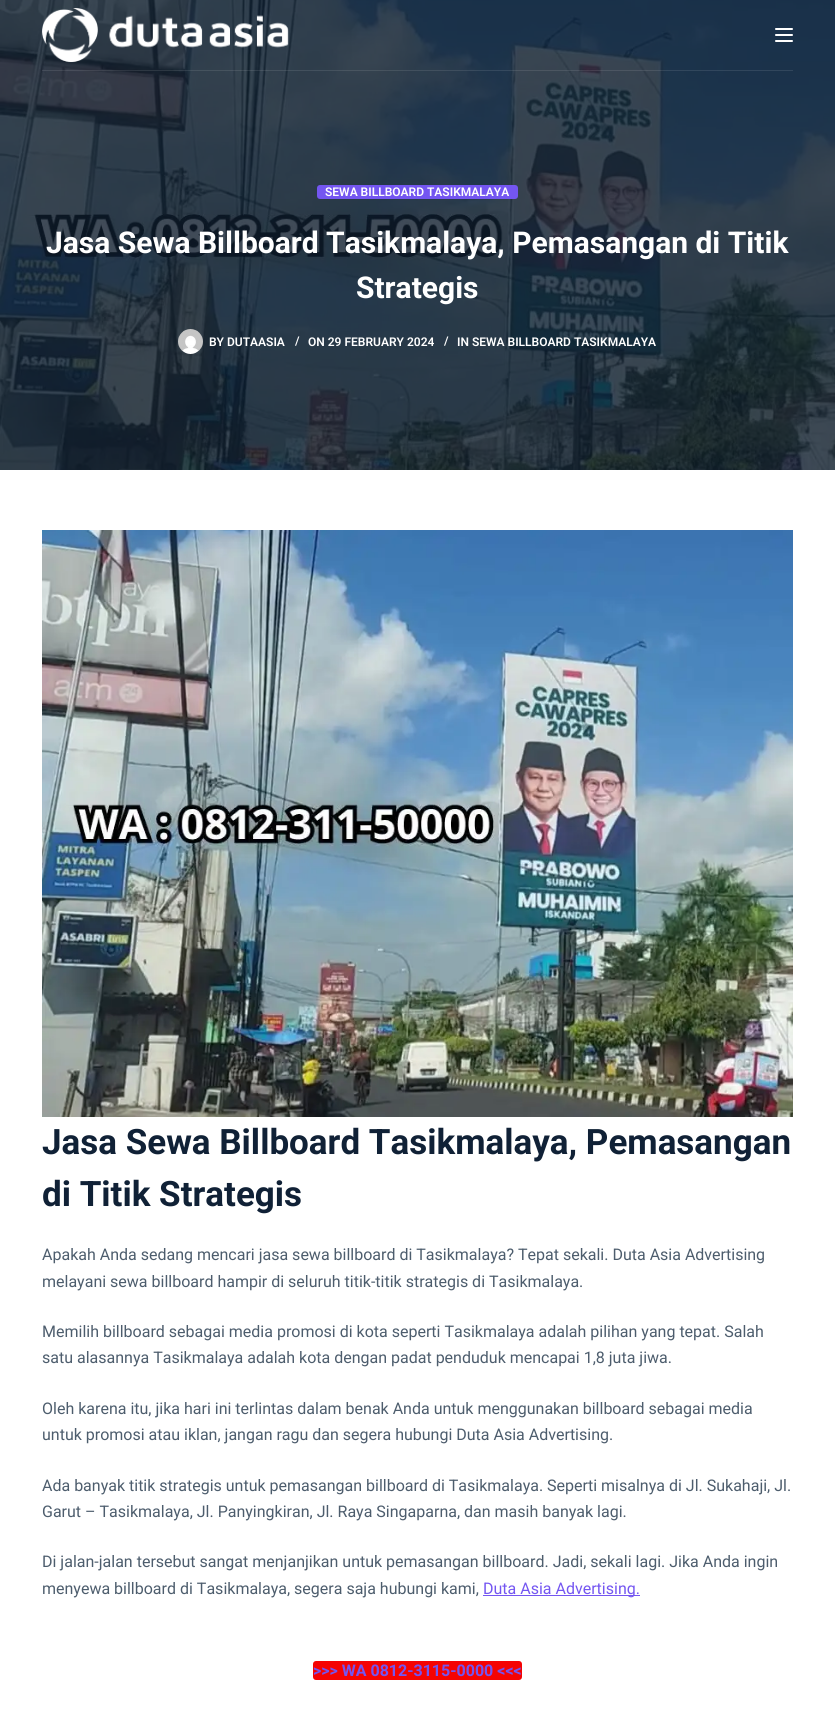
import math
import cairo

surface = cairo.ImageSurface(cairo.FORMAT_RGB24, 835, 1736)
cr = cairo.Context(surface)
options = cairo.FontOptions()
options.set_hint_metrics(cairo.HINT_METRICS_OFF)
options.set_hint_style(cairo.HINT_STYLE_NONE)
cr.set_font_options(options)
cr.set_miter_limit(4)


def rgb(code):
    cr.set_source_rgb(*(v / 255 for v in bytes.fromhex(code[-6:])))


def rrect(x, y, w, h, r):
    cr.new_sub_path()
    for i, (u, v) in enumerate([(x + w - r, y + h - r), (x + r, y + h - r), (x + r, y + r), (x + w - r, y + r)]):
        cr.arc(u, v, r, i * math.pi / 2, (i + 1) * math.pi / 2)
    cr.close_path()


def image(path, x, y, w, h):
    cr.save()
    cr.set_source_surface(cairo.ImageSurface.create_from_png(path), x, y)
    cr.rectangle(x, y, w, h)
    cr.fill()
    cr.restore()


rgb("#ffffff")
cr.paint()
image("img/2.png", 0, 0, 835, 470)
cr.set_source_rgba(1, 1, 1, 0.1)
cr.rectangle(42, 70, 751, 1)
cr.fill()
image("img/1.png", 42, 8, 247, 55)
rgb("#ffffff")
rrect(775, 28, 18, 2, 1)
cr.fill()
rrect(775, 34, 18, 2, 1)
cr.fill()
rrect(775, 40, 18, 2, 1)
cr.fill()
rgb("#7456f1")
rrect(317, 185, 201, 14, 3)
cr.fill()
image("img/3.png", 178, 329, 25, 25)
image("img/4.png", 42, 530, 751, 587)
cr.rectangle(483, 1595, 157, 1)
cr.fill()
rgb("#f50303")
rrect(313, 1661, 209, 19, 3)
cr.fill()
cr.select_font_face("Roboto SemiBold")
cr.set_font_size(12)
rgb("#ffffff")
cr.move_to(325, 196)
cr.show_text("SEWA BILLBOARD TASIKMALAYA")
cr.select_font_face("Roboto", cairo.FONT_SLANT_NORMAL, cairo.FONT_WEIGHT_BOLD)
cr.set_font_size(30)
cr.move_to(46, 253)
cr.show_text("Jasa Sewa Billboard Tasikmalaya, Pemasangan di Titik")
cr.move_to(356, 298)
cr.show_text("Strategis")
cr.select_font_face("Roboto SemiBold")
cr.set_font_size(12)
for x, y, s in [
    (209, 346, "BY DUTAASIA"),
    (295, 345, "/"),
    (308, 346, "ON 29 FEBRUARY 2024"),
    (444, 345, "/"),
    (457, 346, "IN SEWA BILLBOARD TASIKMALAYA"),
]:
    cr.move_to(x, y)
    cr.show_text(s)
cr.select_font_face("Roboto", cairo.FONT_SLANT_NORMAL, cairo.FONT_WEIGHT_BOLD)
cr.set_font_size(35)
rgb("#102136")
cr.move_to(42, 1154)
cr.show_text("Jasa Sewa Billboard Tasikmalaya, Pemasangan")
cr.move_to(42, 1206)
cr.show_text("di Titik Strategis")
cr.select_font_face("Roboto")
cr.set_font_size(16)
rgb("#4d5d6d")
for x, y, s in [
    (42, 1260, "Apakah Anda sedang mencari jasa sewa billboard di Tasikmalaya? Tepat sekali. Duta Asia Advertising"),
    (42, 1287, "melayani sewa billboard hampir di seluruh titik-titik strategis di Tasikmalaya."),
    (42, 1337, "Memilih billboard sebagai media promosi di kota seperti Tasikmalaya adalah pilihan yang tepat. Salah"),
    (42, 1363, "satu alasannya Tasikmalaya adalah kota dengan padat penduduk mencapai 1,8 juta jiwa."),
    (42, 1414, "Oleh karena itu, jika hari ini terlintas dalam benak Anda untuk menggunakan billboard sebagai media"),
    (42, 1440, "untuk promosi atau iklan, jangan ragu dan segera hubungi Duta Asia Advertising."),
    (42, 1491, "Ada banyak titik strategis untuk pemasangan billboard di Tasikmalaya. Seperti misalnya di Jl. Sukahaji, Jl."),
    (42, 1517, "Garut – Tasikmalaya, Jl. Panyingkiran, Jl. Raya Singaparna, dan masih banyak lagi."),
    (42, 1567, "Di jalan-jalan tersebut sangat menjanjikan untuk pemasangan billboard. Jadi, sekali lagi. Jika Anda ingin"),
    (42, 1594, "menyewa billboard di Tasikmalaya, segera saja hubungi kami,"),
]:
    cr.move_to(x, y)
    cr.show_text(s)
rgb("#7456f1")
cr.move_to(483, 1594)
cr.show_text("Duta Asia Advertising.")
cr.select_font_face("Roboto", cairo.FONT_SLANT_NORMAL, cairo.FONT_WEIGHT_BOLD)
cr.move_to(313, 1676)
cr.show_text(">>> WA 0812-3115-0000 <<<")
surface.write_to_png("page.png")
